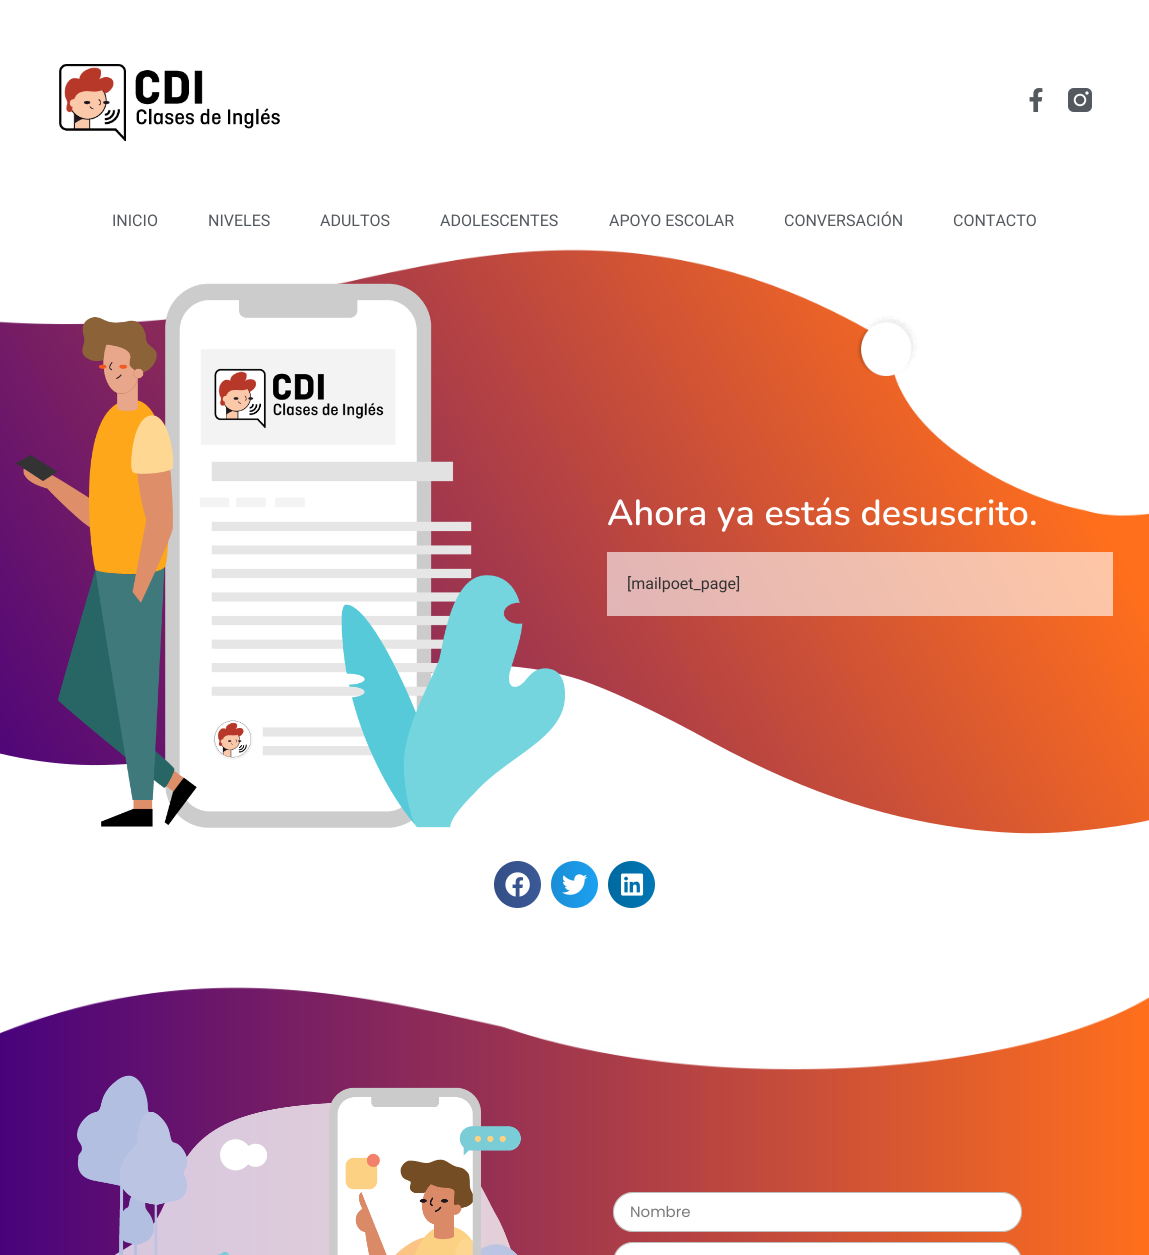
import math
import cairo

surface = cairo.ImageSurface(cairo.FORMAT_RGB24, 1149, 1255)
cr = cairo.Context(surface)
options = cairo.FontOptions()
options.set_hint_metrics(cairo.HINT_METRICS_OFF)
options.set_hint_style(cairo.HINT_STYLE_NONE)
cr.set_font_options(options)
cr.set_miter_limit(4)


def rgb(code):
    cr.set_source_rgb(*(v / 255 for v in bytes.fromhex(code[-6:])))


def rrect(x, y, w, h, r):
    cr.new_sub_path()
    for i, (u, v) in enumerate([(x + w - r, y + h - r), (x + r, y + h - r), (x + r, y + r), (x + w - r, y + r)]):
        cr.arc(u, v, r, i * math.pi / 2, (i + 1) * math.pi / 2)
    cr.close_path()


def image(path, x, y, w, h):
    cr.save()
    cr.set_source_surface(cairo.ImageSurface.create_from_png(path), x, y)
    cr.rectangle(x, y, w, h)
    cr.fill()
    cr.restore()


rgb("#ffffff")
cr.paint()
image("img/1.png", 59, 64, 221, 77)
image("img/2.png", 1029, 88, 14, 24)
image("img/3.png", 1068, 88, 24, 24)
gradient = cairo.LinearGradient(1135, 217, 14, 865)
gradient.add_color_stop_rgba(0.14, 1, 0.435, 0.11, 1)
gradient.add_color_stop_rgba(1, 0.286, 0.008, 0.486, 1)
cr.set_source(gradient)
cr.rectangle(0, 249, 1149, 585)
cr.fill()
gradient = cairo.LinearGradient(1135, 217, 14, 865)
gradient.add_color_stop_rgba(0.14, 1, 0.78, 0.651, 1)
gradient.add_color_stop_rgba(1, 0.722, 0.612, 0.8, 1)
cr.set_source(gradient)
cr.rectangle(607, 552, 506, 64)
cr.fill()
image("img/4.png", 0, 241, 1149, 275)
rgb("#ffffff")
cr.new_path()
cr.move_to(976, 830)
cr.curve_to(894, 820, 815, 798, 710, 741)
cr.curve_to(669, 718, 604, 686, 571, 677)
cr.curve_to(539, 668, 499, 663, 467, 667)
cr.curve_to(453, 669, 436, 670, 398, 681)
cr.curve_to(361, 692, 318, 710, 288, 725)
cr.curve_to(231, 753, 158, 764, 104, 765)
cr.curve_to(-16, 768, -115, 710, -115, 710)
cr.line_to(-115, 842)
cr.line_to(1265, 842)
cr.line_to(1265, 780)
cr.curve_to(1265, 780, 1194, 815, 1118, 826)
cr.curve_to(1044, 837, 1008, 833, 976, 830)
cr.close_path()
cr.fill()
image("img/5.png", 15, 283, 550, 545)
rgb("#3b5998")
cr.arc(517.5, 884.5, 23.5, 0, 2 * math.pi)
cr.fill()
gradient = cairo.LinearGradient(494, 885, 541, 885)
gradient.add_color_stop_rgba(0, 0, 0, 0, 0.12)
gradient.add_color_stop_rgba(1, 0, 0, 0, 0)
cr.set_source(gradient)
cr.arc(517.5, 884.5, 23.5, 0, 2 * math.pi)
cr.fill()
image("img/6.png", 505, 872, 25, 25)
rgb("#1da1f2")
cr.arc(574.5, 884.5, 23.5, 0, 2 * math.pi)
cr.fill()
gradient = cairo.LinearGradient(551, 885, 598, 885)
gradient.add_color_stop_rgba(0, 0, 0, 0, 0.12)
gradient.add_color_stop_rgba(1, 0, 0, 0, 0)
cr.set_source(gradient)
cr.arc(574.5, 884.5, 23.5, 0, 2 * math.pi)
cr.fill()
image("img/7.png", 562, 874, 25, 21)
rgb("#0077b5")
cr.arc(631.5, 884.5, 23.5, 0, 2 * math.pi)
cr.fill()
gradient = cairo.LinearGradient(608, 885, 655, 885)
gradient.add_color_stop_rgba(0, 0, 0, 0, 0.12)
gradient.add_color_stop_rgba(1, 0, 0, 0, 0)
cr.set_source(gradient)
cr.arc(631.5, 884.5, 23.5, 0, 2 * math.pi)
cr.fill()
image("img/8.png", 621, 873, 23, 23)
gradient = cairo.LinearGradient(1149, 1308, 0, 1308)
gradient.add_color_stop_rgba(0, 1, 0.435, 0.11, 1)
gradient.add_color_stop_rgba(1, 0.286, 0.008, 0.486, 1)
cr.set_source(gradient)
cr.rectangle(0, 987, 1149, 268)
cr.fill()
image("img/9.png", 0, 978, 1149, 92)
image("img/10.png", 77, 1075, 444, 180)
rgb("#ffffff")
rrect(613, 1192, 409, 40, 20)
cr.fill()
rrect(613.5, 1192.5, 408, 39, 19.5)
cr.set_source_rgba(0.478, 0.478, 0.478, 0.5)
cr.set_line_width(1)
cr.stroke()
rgb("#ffffff")
rrect(613, 1242, 409, 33, 20)
cr.fill()
rrect(613.5, 1242.5, 408, 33, 19.5)
cr.set_source_rgba(0.478, 0.478, 0.478, 0.5)
cr.stroke()
cr.select_font_face("Roboto")
cr.set_font_size(16)
rgb("#54595f")
for x, y, s in [
    (112, 226, "INICIO"),
    (208, 226, "NIVELES"),
    (320, 226, "ADULTOS"),
    (440, 226, "ADOLESCENTES"),
    (609, 226, "APOYO ESCOLAR"),
    (784, 226, "CONVERSACIÓN"),
    (953, 226, "CONTACTO"),
]:
    cr.move_to(x, y)
    cr.show_text(s)
cr.select_font_face("Nunito SemiBold")
cr.set_font_size(36)
rgb("#ffffff")
cr.move_to(607, 525)
cr.show_text("Ahora ya estás desuscrito.")
cr.select_font_face("Roboto")
cr.set_font_size(16)
rgb("#333333")
cr.move_to(627, 589)
cr.show_text("[mailpoet_page]")
cr.select_font_face("Poppins")
cr.set_font_size(15)
rgb("#797a7c")
cr.move_to(630, 1217)
cr.show_text("Nombre")
surface.write_to_png("page.png")
